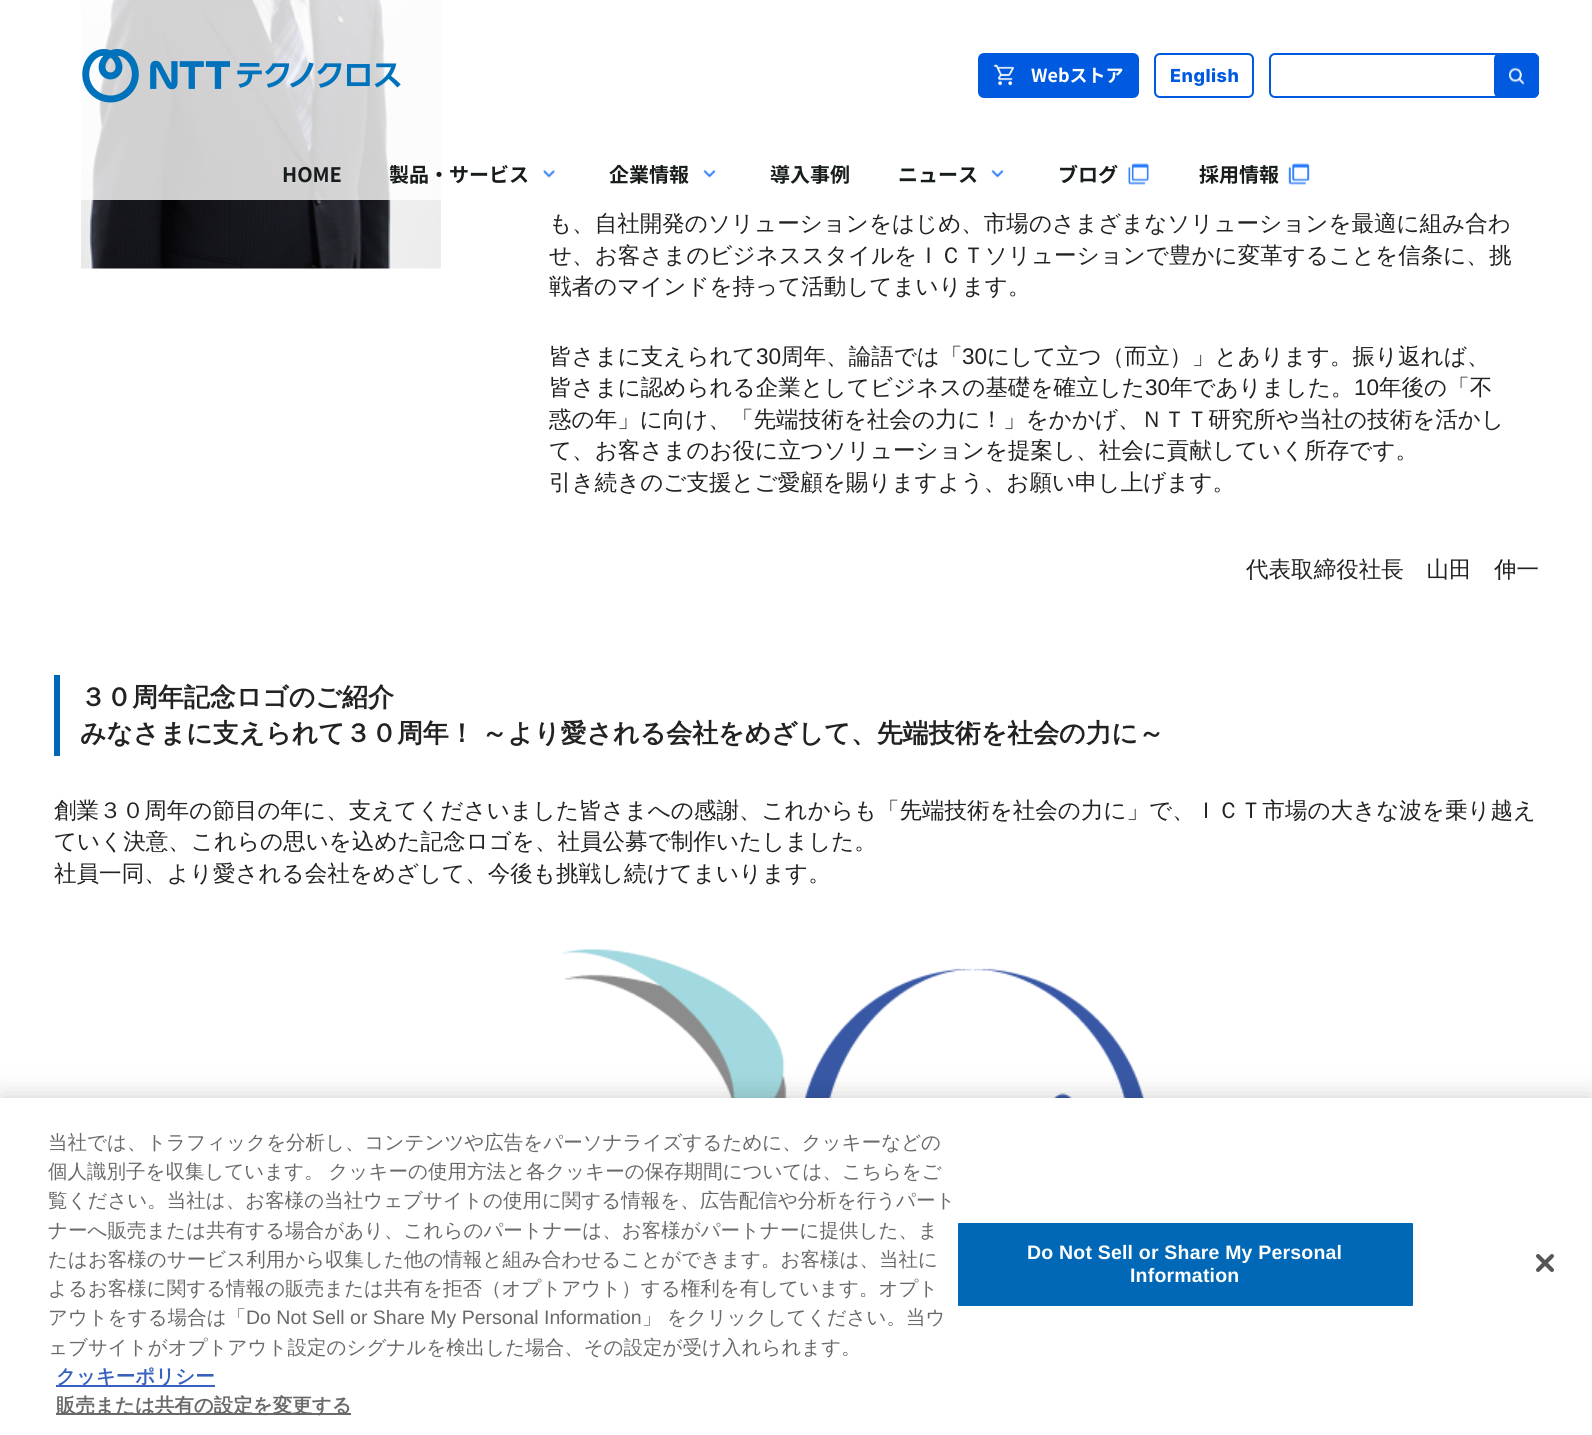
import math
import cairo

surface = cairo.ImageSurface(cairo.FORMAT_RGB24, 1592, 1435)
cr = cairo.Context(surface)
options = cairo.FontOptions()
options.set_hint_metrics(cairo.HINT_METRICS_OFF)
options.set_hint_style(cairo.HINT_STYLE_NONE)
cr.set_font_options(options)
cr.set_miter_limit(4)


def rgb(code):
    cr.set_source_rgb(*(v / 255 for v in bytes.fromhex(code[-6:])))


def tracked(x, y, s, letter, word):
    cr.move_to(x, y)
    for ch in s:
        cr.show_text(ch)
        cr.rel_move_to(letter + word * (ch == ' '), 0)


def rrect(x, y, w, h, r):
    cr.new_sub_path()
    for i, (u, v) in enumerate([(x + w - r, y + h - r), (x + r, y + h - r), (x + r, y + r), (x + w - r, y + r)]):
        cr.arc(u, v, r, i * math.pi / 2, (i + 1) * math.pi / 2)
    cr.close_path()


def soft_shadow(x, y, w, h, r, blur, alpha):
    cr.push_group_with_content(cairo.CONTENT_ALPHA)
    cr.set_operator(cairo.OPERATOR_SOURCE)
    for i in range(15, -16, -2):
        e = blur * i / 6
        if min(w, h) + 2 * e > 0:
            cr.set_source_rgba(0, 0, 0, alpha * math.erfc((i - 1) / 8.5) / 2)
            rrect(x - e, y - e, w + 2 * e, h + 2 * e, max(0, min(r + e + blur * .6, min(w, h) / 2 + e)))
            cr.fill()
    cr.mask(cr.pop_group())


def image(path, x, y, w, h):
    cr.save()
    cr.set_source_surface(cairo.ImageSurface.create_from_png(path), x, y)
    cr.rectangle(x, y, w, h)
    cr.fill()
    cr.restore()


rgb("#ffffff")
cr.paint()
image("img/9.png", 81, 0, 360, 269)
cr.set_source_rgba(1, 1, 1, 0.8)
cr.rectangle(81, 0, 360, 200)
cr.fill()
image("img/1.png", 82, 49, 319, 54)
rgb("#005ae0")
rrect(978, 53, 161, 45, 6)
cr.fill()
image("img/2.png", 993, 64, 21, 22)
rrect(1155, 54, 98, 43, 5)
cr.stroke()
rrect(1270, 54, 268, 43, 5)
cr.stroke()
rrect(1494, 53, 45, 45, 6)
cr.fill()
image("img/3.png", 1509, 67, 15, 18)
image("img/4.png", 543, 169, 12, 9)
image("img/5.png", 703, 169, 13, 9)
image("img/6.png", 991, 169, 13, 9)
image("img/7.png", 1128, 163, 21, 22)
image("img/8.png", 1288, 163, 22, 22)
rgb("#0068b7")
cr.rectangle(54, 675, 6, 81)
cr.fill()
image("img/10.png", 562, 949, 583, 149)
rgb("#000000")
soft_shadow(0, 1098, 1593, 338, 0, 13.5, 0.2)
for x, y, w, h, color in [
    (0, 1098, 1592, 337, "#ffffff"),
    (56, 1385, 159, 2, "#3860be"),
    (56, 1413, 295, 2, "#696969"),
]:
    rgb(color)
    cr.rectangle(x, y, w, h)
    cr.fill()
rgb("#0068b7")
rrect(957, 1222, 457, 85, 2)
cr.fill_preserve()
rgb("#ffffff")
cr.stroke()
image("img/11.png", 1536, 1254, 18, 18)
cr.select_font_face("Noto Sans JP", cairo.FONT_SLANT_NORMAL, cairo.FONT_WEIGHT_BOLD)
cr.set_font_size(18)
cr.move_to(1031, 82)
cr.show_text("Webストア")
cr.select_font_face("Inter ExtraBold")
rgb("#005ae0")
tracked(1170, 82, "English", 0.5, 0)
cr.select_font_face("Noto Sans JP", cairo.FONT_SLANT_NORMAL, cairo.FONT_WEIGHT_BOLD)
cr.set_font_size(20)
rgb("#171d1c")
for x, y, s in [
    (282, 182, "HOME"),
    (389, 182, "製品・サービス"),
    (609, 182, "企業情報"),
    (770, 182, "導入事例"),
    (898, 182, "ニュース"),
    (1058, 182, "ブログ"),
    (1199, 182, "採用情報"),
]:
    cr.move_to(x, y)
    cr.show_text(s)
cr.select_font_face("WenQuanYi Zen Hei Medium")
cr.set_font_size(22.55)
rgb("#222222")
for x, y, s in [
    (549, 231, "も、自社開発のソリューションをはじめ、市場のさまざまなソリューションを最適に組み合わ"),
    (549, 263, "せ、お客さまのビジネススタイルをＩＣＴソリューションで豊かに変革することを信条に、挑"),
    (549, 294, "戦者のマインドを持って活動してまいります。"),
    (549, 364, "皆さまに支えられて"),
]:
    cr.move_to(x, y)
    cr.show_text(s)
cr.select_font_face("Liberation Sans")
cr.move_to(756, 364)
cr.show_text("30")
cr.select_font_face("WenQuanYi Zen Hei Medium")
cr.move_to(781, 364)
cr.show_text("周年、論語では「")
cr.select_font_face("Liberation Sans")
cr.move_to(962, 364)
cr.show_text("30")
cr.select_font_face("WenQuanYi Zen Hei Medium")
cr.move_to(987, 364)
cr.show_text("にして立つ（而立）」とあります。振り返れば、")
cr.move_to(549, 395)
cr.show_text("皆さまに認められる企業としてビジネスの基礎を確立した")
cr.select_font_face("Liberation Sans")
cr.move_to(1145, 395)
cr.show_text("30")
cr.select_font_face("WenQuanYi Zen Hei Medium")
cr.move_to(1170, 395)
cr.show_text("年でありました。")
cr.select_font_face("Liberation Sans")
cr.move_to(1354, 395)
cr.show_text("10")
cr.select_font_face("WenQuanYi Zen Hei Medium")
for x, y, s in [
    (1379, 395, "年後の「不"),
    (549, 427, "惑の年」に向け、「先端技術を社会の力に！」をかかげ、ＮＴＴ研究所や当社の技術を活かし"),
    (549, 458, "て、お客さまのお役に立つソリューションを提案し、社会に貢献していく所存です。"),
    (549, 490, "引き続きのご支援とご愛顧を賜りますよう、お願い申し上げます。"),
    (1246, 577, "代表取締役社長　山田　伸一"),
]:
    cr.move_to(x, y)
    cr.show_text(s)
cr.select_font_face("WenQuanYi Zen Hei", cairo.FONT_SLANT_NORMAL, cairo.FONT_WEIGHT_BOLD)
cr.set_font_size(25.95)
cr.move_to(80, 706)
cr.show_text("３０周年記念ロゴのご紹介")
tracked(80, 742, "みなさまに支えられて３０周年！ ～より愛される会社をめざして、先端技術を社会の力に～", 0, -1)
cr.select_font_face("WenQuanYi Zen Hei Medium")
cr.set_font_size(22.55)
for x, y, s in [
    (54, 818, "創業３０周年の節目の年に、支えてくださいました皆さまへの感謝、これからも「先端技術を社会の力に」で、ＩＣＴ市場の大きな波を乗り越え"),
    (54, 849, "ていく決意、これらの思いを込めた記念ロゴを、社員公募で制作いたしました。"),
    (54, 881, "社員一同、より愛される会社をめざして、今後も挑戦し続けてまいります。"),
]:
    cr.move_to(x, y)
    cr.show_text(s)
cr.set_font_size(19.5)
rgb("#696969")
cr.move_to(48, 1149)
cr.show_text("当社では、トラフィックを分析し、コンテンツや広告をパーソナライズするために、クッキーなどの")
tracked(48, 1178, "個人識別子を収集しています。 クッキーの使用方法と各クッキーの保存期間については、こちらをご", 0, -1)
for x, y, s in [
    (48, 1207, "覧ください。当社は、お客様の当社ウェブサイトの使用に関する情報を、広告配信や分析を行うパート"),
    (48, 1237, "ナーへ販売または共有する場合があり、これらのパートナーは、お客様がパートナーに提供した、ま"),
    (48, 1266, "たはお客様のサービス利用から収集した他の情報と組み合わせることができます。お客様は、当社に"),
    (48, 1295, "よるお客様に関する情報の販売または共有を拒否（オプトアウト）する権利を有しています。オプト"),
    (48, 1324, "アウトをする場合は「"),
]:
    cr.move_to(x, y)
    cr.show_text(s)
cr.select_font_face("Liberation Sans")
cr.move_to(246, 1324)
cr.show_text("Do Not Sell or Share My Personal Information")
cr.select_font_face("WenQuanYi Zen Hei Medium")
for x, y, s in [
    (642, 1324, "」"),
    (667, 1324, "をクリックしてください。当ウ"),
    (48, 1354, "ェブサイトがオプトアウト設定のシグナルを検出した場合、その設定が受け入れられます。"),
]:
    cr.move_to(x, y)
    cr.show_text(s)
cr.select_font_face("WenQuanYi Zen Hei", cairo.FONT_SLANT_NORMAL, cairo.FONT_WEIGHT_BOLD)
rgb("#3860be")
cr.move_to(56, 1383)
cr.show_text("クッキーポリシー")
rgb("#696969")
cr.move_to(56, 1412)
cr.show_text("販売または共有の設定を変更する")
cr.select_font_face("Liberation Sans", cairo.FONT_SLANT_NORMAL, cairo.FONT_WEIGHT_BOLD)
rgb("#ffffff")
tracked(1027, 1259, "Do Not Sell or Share My Personal", 0.2, 0)
tracked(1130, 1282, "Information", 0.2, 0)
surface.write_to_png("page.png")
